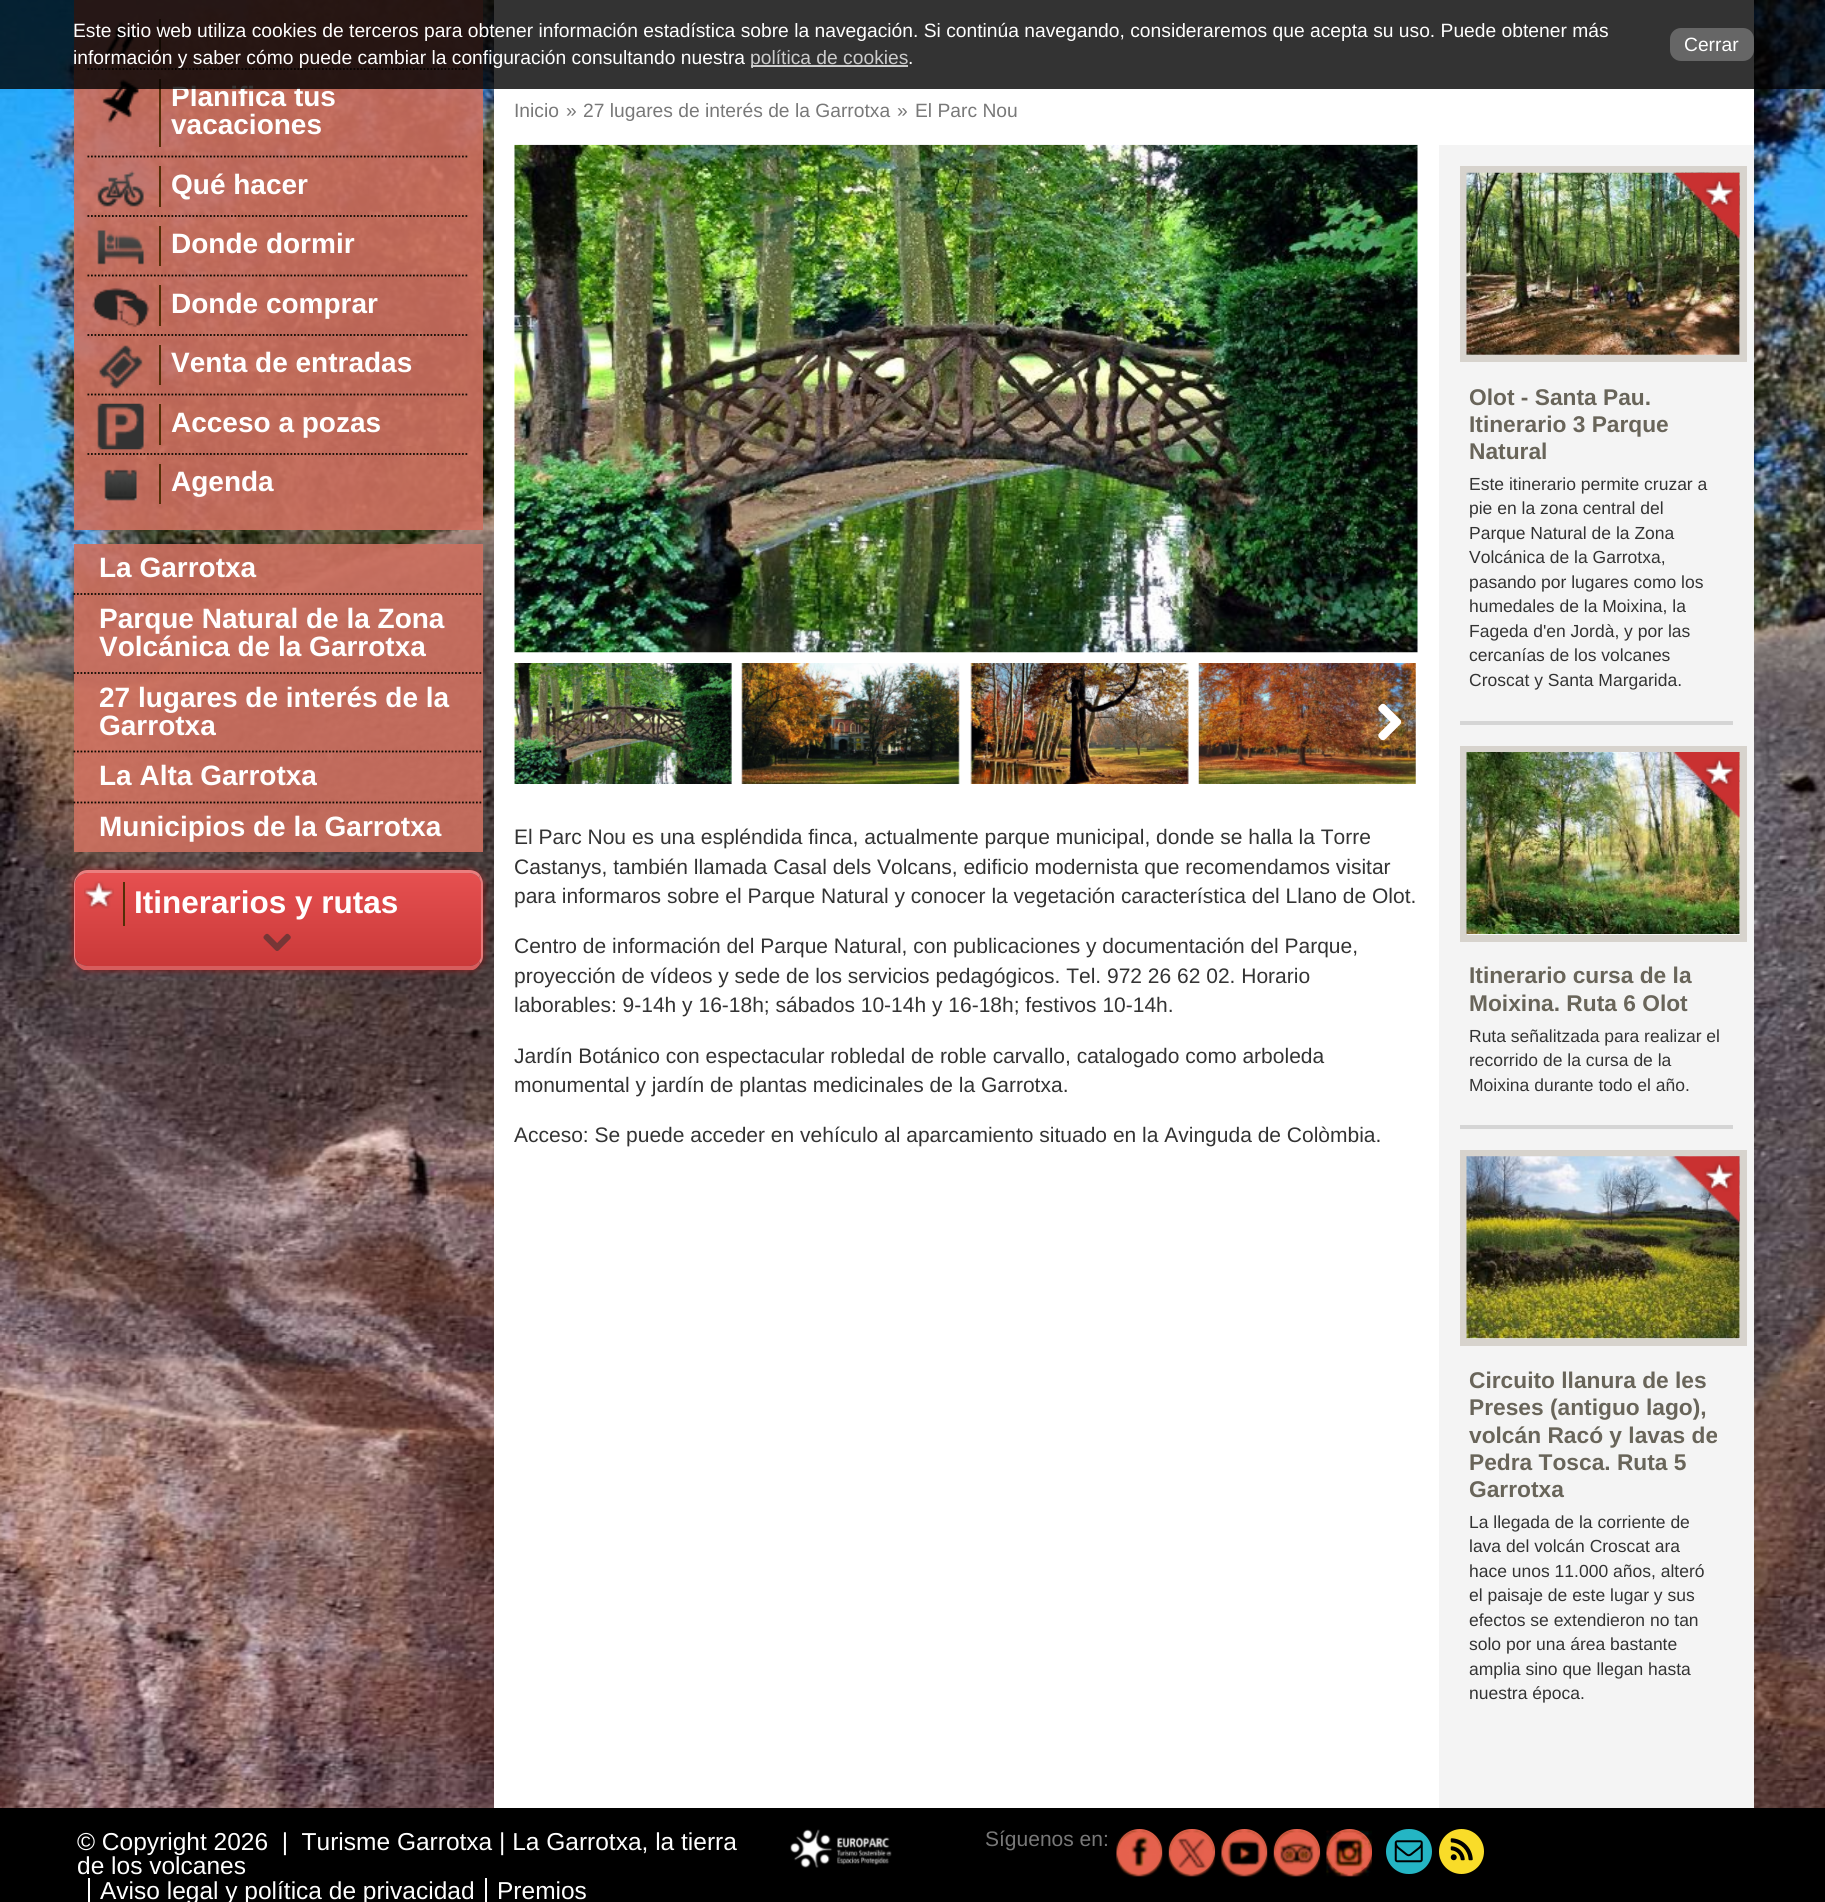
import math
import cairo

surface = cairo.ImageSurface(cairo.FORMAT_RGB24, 1825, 1902)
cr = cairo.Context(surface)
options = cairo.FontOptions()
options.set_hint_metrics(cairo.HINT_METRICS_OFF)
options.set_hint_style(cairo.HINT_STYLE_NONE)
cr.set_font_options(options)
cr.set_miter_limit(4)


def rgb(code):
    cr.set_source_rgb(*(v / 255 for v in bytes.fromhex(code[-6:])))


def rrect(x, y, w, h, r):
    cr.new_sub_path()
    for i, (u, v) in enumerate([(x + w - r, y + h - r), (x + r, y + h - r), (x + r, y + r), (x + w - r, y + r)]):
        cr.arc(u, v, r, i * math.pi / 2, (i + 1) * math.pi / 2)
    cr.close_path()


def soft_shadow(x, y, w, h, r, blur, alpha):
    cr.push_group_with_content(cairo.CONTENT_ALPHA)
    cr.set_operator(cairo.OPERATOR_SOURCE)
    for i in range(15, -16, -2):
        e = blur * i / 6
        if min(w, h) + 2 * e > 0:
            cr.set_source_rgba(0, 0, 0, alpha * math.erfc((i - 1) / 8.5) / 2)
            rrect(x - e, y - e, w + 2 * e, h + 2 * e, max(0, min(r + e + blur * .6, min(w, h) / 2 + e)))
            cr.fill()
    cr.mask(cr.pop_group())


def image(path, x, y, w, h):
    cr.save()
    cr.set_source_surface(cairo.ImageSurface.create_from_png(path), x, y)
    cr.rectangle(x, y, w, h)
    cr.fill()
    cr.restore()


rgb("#ffffff")
cr.paint()
image("img/1.png", 0, 0, 1825, 1808)
cr.set_source_rgba(0.808, 0.439, 0.376, 0.9)
cr.rectangle(74, 0, 409, 530)
cr.fill()
image("img/2.png", 105, 20, 32, 42)
rgb("#532e07")
cr.rectangle(159, 19, 2, 41)
cr.fill()
cr.new_path()
cr.move_to(87.5, 69)
cr.line_to(469, 69)
rgb("#0e0801")
cr.set_line_width(1.8)
cr.set_dash([1.75, 1.75])
cr.stroke()
image("img/3.png", 102, 79, 38, 44)
rgb("#532e07")
cr.rectangle(159, 79, 2, 68)
cr.fill()
cr.new_path()
cr.move_to(87.5, 156.5)
cr.line_to(469, 156.5)
rgb("#0e0801")
cr.stroke()
image("img/4.png", 97, 170, 47, 37)
rgb("#532e07")
cr.rectangle(159, 166, 2, 41)
cr.fill()
cr.new_path()
cr.move_to(87.5, 216)
cr.line_to(469, 216)
rgb("#0e0801")
cr.stroke()
image("img/5.png", 97, 230, 47, 35)
rgb("#532e07")
cr.rectangle(159, 226, 2, 40)
cr.fill()
cr.new_path()
cr.move_to(87.5, 275.5)
cr.line_to(469, 275.5)
rgb("#0e0801")
cr.stroke()
image("img/6.png", 92, 287, 58, 41)
rgb("#532e07")
cr.rectangle(159, 285, 2, 41)
cr.fill()
cr.new_path()
cr.move_to(87.5, 335)
cr.line_to(469, 335)
rgb("#0e0801")
cr.stroke()
image("img/7.png", 99, 345, 44, 44)
rgb("#532e07")
cr.rectangle(159, 345, 2, 40)
cr.fill()
cr.new_path()
cr.move_to(87.5, 394.5)
cr.line_to(469, 394.5)
rgb("#0e0801")
cr.stroke()
image("img/8.png", 97, 403, 47, 47)
rgb("#532e07")
cr.rectangle(159, 404, 2, 41)
cr.fill()
cr.new_path()
cr.move_to(87.5, 454)
cr.line_to(469, 454)
rgb("#0e0801")
cr.stroke()
image("img/9.png", 104, 469, 33, 32)
rgb("#532e07")
cr.rectangle(159, 464, 2, 40)
cr.fill()
cr.set_source_rgba(0.808, 0.439, 0.376, 0.9)
cr.rectangle(74, 544, 409, 308)
cr.fill()
cr.new_path()
cr.move_to(73.5, 594)
cr.line_to(483, 594)
rgb("#0e0801")
cr.stroke()
cr.new_path()
cr.move_to(73.5, 673)
cr.line_to(483, 673)
cr.stroke()
cr.new_path()
cr.move_to(73.5, 751.5)
cr.line_to(483, 751.5)
cr.stroke()
cr.new_path()
cr.move_to(73.5, 802.5)
cr.line_to(483, 802.5)
cr.stroke()
cr.save()
cr.set_fill_rule(cairo.FILL_RULE_EVEN_ODD)
cr.new_path()
cr.move_to(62, 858)
cr.line_to(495, 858)
cr.line_to(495, 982)
cr.line_to(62, 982)
cr.close_path()
cr.move_to(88, 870)
cr.line_to(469, 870)
cr.curve_to(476.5, 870, 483, 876.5, 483, 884)
cr.line_to(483, 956)
cr.curve_to(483, 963.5, 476.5, 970, 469, 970)
cr.line_to(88, 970)
cr.curve_to(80.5, 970, 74, 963.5, 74, 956)
cr.line_to(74, 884)
cr.curve_to(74, 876.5, 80.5, 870, 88, 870)
cr.close_path()
cr.clip()
rgb("#8a1919")
soft_shadow(74, 870, 409, 100, 14, 3.5, 1)
cr.restore()
gradient = cairo.LinearGradient(278, 873, 278, 966)
gradient.add_color_stop_rgba(0, 0.902, 0.314, 0.314, 1)
gradient.add_color_stop_rgba(1, 0.792, 0.224, 0.224, 1)
cr.set_source(gradient)
cr.new_path()
cr.move_to(88, 873)
cr.line_to(469, 873)
cr.curve_to(476, 873, 481, 878, 481, 884)
cr.line_to(481, 956)
cr.curve_to(481, 961, 476, 966, 469, 966)
cr.line_to(88, 966)
cr.curve_to(81, 966, 75, 961, 75, 956)
cr.line_to(75, 884)
cr.curve_to(75, 878, 81, 873, 88, 873)
cr.close_path()
cr.fill()
rgb("#ea7f7f")
cr.new_path()
cr.move_to(88, 870)
cr.curve_to(83, 870, 79, 872, 77, 876)
cr.line_to(77, 878)
cr.curve_to(80, 875, 84, 873, 88, 873)
cr.line_to(469, 873)
cr.curve_to(473, 873, 477, 875, 479, 878)
cr.line_to(480, 875)
cr.curve_to(478, 872, 474, 870, 469, 870)
cr.close_path()
cr.fill()
rgb("#e97a7a")
cr.new_path()
cr.move_to(480, 875)
cr.curve_to(482, 878, 483, 881, 483, 884)
cr.line_to(483, 956)
cr.curve_to(483, 959, 482, 962, 480, 964)
cr.line_to(479, 961)
cr.curve_to(480, 960, 481, 958, 481, 956)
cr.line_to(481, 884)
cr.curve_to(481, 882, 480, 880, 479, 878)
cr.close_path()
cr.fill()
rgb("#d65e5e")
cr.new_path()
cr.move_to(84, 970)
cr.curve_to(81, 969, 78, 966, 76, 964)
cr.line_to(77, 962)
cr.curve_to(80, 964, 84, 966, 88, 966)
cr.line_to(469, 966)
cr.curve_to(473, 966, 477, 964, 479, 961)
cr.line_to(480, 964)
cr.curve_to(478, 967, 476, 969, 473, 970)
cr.close_path()
cr.fill()
rgb("#eb7f7f")
cr.new_path()
cr.move_to(77, 876)
cr.curve_to(75, 878, 74, 881, 74, 884)
cr.line_to(74, 956)
cr.curve_to(74, 959, 75, 961, 76, 964)
cr.line_to(77, 962)
cr.curve_to(76, 960, 75, 958, 75, 956)
cr.line_to(75, 884)
cr.curve_to(75, 882, 76, 879, 77, 878)
cr.close_path()
cr.fill()
image("img/10.png", 84, 881, 30, 28)
rgb("#532e07")
cr.rectangle(123, 882, 2, 44)
cr.fill()
image("img/11.png", 263, 933, 28, 18)
rgb("#ffffff")
cr.rectangle(494, 0, 1260, 1808)
cr.fill()
image("img/12.png", 514, 144, 904, 509)
image("img/13.png", 514, 663, 218, 121)
image("img/14.png", 741, 663, 219, 121)
image("img/15.png", 970, 663, 219, 121)
image("img/16.png", 1198, 663, 218, 121)
image("img/17.png", 1378, 703, 24, 38)
rgb("#f4f4f4")
cr.rectangle(1439, 145, 315, 1663)
cr.fill()
cr.rectangle(1463.5, 169.5, 280, 189)
rgb("#d7d3cd")
cr.set_line_width(7)
cr.set_dash([])
cr.stroke()
image("img/18.png", 1466, 172, 274, 183)
image("img/19.png", 1669, 172, 71, 68)
rgb("#d5d5d5")
cr.rectangle(1460, 721, 273, 4)
cr.fill()
cr.rectangle(1463.5, 749.5, 280, 189)
rgb("#d7d3cd")
cr.stroke()
image("img/20.png", 1466, 752, 274, 182)
image("img/21.png", 1669, 752, 71, 67)
rgb("#d5d5d5")
cr.rectangle(1460, 1125, 273, 4)
cr.fill()
cr.rectangle(1463.5, 1153.5, 280, 189)
rgb("#d7d3cd")
cr.stroke()
image("img/22.png", 1466, 1156, 274, 183)
image("img/23.png", 1669, 1156, 71, 68)
for x, y, w, h, color in [
    (0, 1808, 1825, 94, "#000000"),
    (88, 1878, 2, 24, "#ffffff"),
    (485, 1878, 2, 24, "#ffffff"),
]:
    rgb(color)
    cr.rectangle(x, y, w, h)
    cr.fill()
image("img/24.png", 790, 1829, 102, 39)
rgb("#e6624e")
cr.arc(1139.5, 1851.5, 22.5, 0, 2 * math.pi)
cr.fill()
image("img/25.png", 1116, 1829, 47, 48)
rrect(1169, 1829, 46, 45, 22.5)
cr.fill()
image("img/26.png", 1168, 1830, 48, 47)
cr.arc(1244.5, 1851.5, 22.5, 0, 2 * math.pi)
cr.fill()
image("img/27.png", 1221, 1829, 47, 48)
rrect(1274, 1829, 46, 45, 22.5)
cr.fill()
image("img/28.png", 1273, 1830, 48, 47)
cr.arc(1349.5, 1851.5, 22.5, 0, 2 * math.pi)
cr.fill()
image("img/29.png", 1326, 1829, 46, 48)
rgb("#24b5c4")
rrect(1386, 1829, 46, 45, 22.5)
cr.fill()
image("img/30.png", 1394, 1840, 29, 23)
rgb("#f9dc29")
cr.arc(1461.5, 1851.5, 22.5, 0, 2 * math.pi)
cr.fill()
image("img/31.png", 1450, 1838, 23, 23)
cr.select_font_face("Liberation Sans", cairo.FONT_SLANT_NORMAL, cairo.FONT_WEIGHT_BOLD)
cr.set_font_size(28)
rgb("#ffffff")
cr.move_to(171, 106)
cr.show_text("Planifica tus")
cr.set_source_rgba(0, 0, 0, 0.8)
cr.rectangle(0, 0, 1825, 89)
cr.fill()
cr.select_font_face("Liberation Sans")
cr.set_font_size(19.25)
rgb("#ffffff")
cr.move_to(908, 64)
cr.show_text(".")
rgb("#cccccc")
cr.rectangle(751, 65, 157, 2)
cr.fill()
cr.move_to(750, 64)
cr.show_text("política de cookies")
rgb("#ffffff")
cr.move_to(73, 64)
cr.show_text("información y saber cómo puede cambiar la configuración consultando nuestra")
cr.move_to(73, 37)
cr.show_text("Este sitio web utiliza cookies de terceros para obtener información estadística sobre la navegación. Si continúa navegando, consideraremos que acepta su uso. Puede obtener más")
rgb("#666666")
rrect(1670, 28, 84, 33, 11)
cr.fill()
rgb("#ffffff")
cr.move_to(1684, 51)
cr.show_text("Cerrar")
cr.select_font_face("Liberation Sans", cairo.FONT_SLANT_NORMAL, cairo.FONT_WEIGHT_BOLD)
cr.set_font_size(28)
for x, y, s in [
    (171, 134, "vacaciones"),
    (171, 194, "Qué hacer"),
    (171, 253, "Donde dormir"),
    (171, 313, "Donde comprar"),
    (171, 372, "Venta de entradas"),
    (171, 432, "Acceso a pozas"),
    (171, 491, "Agenda"),
    (99, 577, "La Garrotxa"),
    (99, 628, "Parque Natural de la Zona"),
    (99, 656, "Volcánica de la Garrotxa"),
    (99, 707, "27 lugares de interés de la"),
    (99, 735, "Garrotxa"),
    (99, 785, "La Alta Garrotxa"),
    (99, 836, "Municipios de la Garrotxa"),
]:
    cr.move_to(x, y)
    cr.show_text(s)
cr.set_font_size(31.5)
cr.move_to(134, 913)
cr.show_text("Itinerarios y rutas")
cr.select_font_face("Liberation Sans")
cr.set_font_size(19.25)
rgb("#787878")
for x, y, s in [
    (514, 117, "Inicio"),
    (566, 117, "»"),
    (583, 117, "27 lugares de interés de la Garrotxa"),
    (897, 117, "»"),
    (915, 117, "El Parc Nou"),
]:
    cr.move_to(x, y)
    cr.show_text(s)
cr.set_font_size(21)
rgb("#333333")
for x, y, s in [
    (514, 844, "El Parc Nou es una espléndida finca, actualmente parque municipal, donde se halla la Torre"),
    (514, 874, "Castanys, también llamada Casal dels Volcans, edificio modernista que recomendamos visitar"),
    (514, 903, "para informaros sobre el Parque Natural y conocer la vegetación característica del Llano de Olot."),
    (514, 953, "Centro de información del Parque Natural, con publicaciones y documentación del Parque,"),
    (514, 983, "proyección de vídeos y sede de los servicios pedagógicos. Tel. 972 26 62 02. Horario"),
    (514, 1012, "laborables: 9-14h y 16-18h; sábados 10-14h y 16-18h; festivos 10-14h."),
    (514, 1063, "Jardín Botánico con espectacular robledal de roble carvallo, catalogado como arboleda"),
    (514, 1092, "monumental y jardín de plantas medicinales de la Garrotxa."),
    (514, 1142, "Acceso: Se puede acceder en vehículo al aparcamiento situado en la Avinguda de Colòmbia."),
]:
    cr.move_to(x, y)
    cr.show_text(s)
cr.select_font_face("Liberation Sans", cairo.FONT_SLANT_NORMAL, cairo.FONT_WEIGHT_BOLD)
cr.set_font_size(22.75)
rgb("#69655a")
for x, y, s in [
    (1469, 405, "Olot - Santa Pau."),
    (1469, 432, "Itinerario 3 Parque"),
    (1469, 459, "Natural"),
]:
    cr.move_to(x, y)
    cr.show_text(s)
cr.select_font_face("Liberation Sans")
cr.set_font_size(17.5)
rgb("#333333")
for x, y, s in [
    (1469, 490, "Este itinerario permite cruzar a"),
    (1469, 514, "pie en la zona central del"),
    (1469, 539, "Parque Natural de la Zona"),
    (1469, 563, "Volcánica de la Garrotxa,"),
    (1469, 588, "pasando por lugares como los"),
    (1469, 612, "humedales de la Moixina, la"),
    (1469, 637, "Fageda d'en Jordà, y por las"),
    (1469, 661, "cercanías de los volcanes"),
    (1469, 686, "Croscat y Santa Margarida."),
]:
    cr.move_to(x, y)
    cr.show_text(s)
cr.select_font_face("Liberation Sans", cairo.FONT_SLANT_NORMAL, cairo.FONT_WEIGHT_BOLD)
cr.set_font_size(22.75)
rgb("#69655a")
cr.move_to(1469, 983)
cr.show_text("Itinerario cursa de la")
cr.move_to(1469, 1011)
cr.show_text("Moixina. Ruta 6 Olot")
cr.select_font_face("Liberation Sans")
cr.set_font_size(17.5)
rgb("#333333")
for x, y, s in [
    (1469, 1042, "Ruta señalitzada para realizar el"),
    (1469, 1066, "recorrido de la cursa de la"),
    (1469, 1091, "Moixina durante todo el año."),
]:
    cr.move_to(x, y)
    cr.show_text(s)
cr.select_font_face("Liberation Sans", cairo.FONT_SLANT_NORMAL, cairo.FONT_WEIGHT_BOLD)
cr.set_font_size(22.75)
rgb("#69655a")
for x, y, s in [
    (1469, 1388, "Circuito llanura de les"),
    (1469, 1415, "Preses (antiguo lago),"),
    (1469, 1443, "volcán Racó y lavas de"),
    (1469, 1470, "Pedra Tosca. Ruta 5"),
    (1469, 1497, "Garrotxa"),
]:
    cr.move_to(x, y)
    cr.show_text(s)
cr.select_font_face("Liberation Sans")
cr.set_font_size(17.5)
rgb("#333333")
for x, y, s in [
    (1469, 1528, "La llegada de la corriente de"),
    (1469, 1552, "lava del volcán Croscat ara"),
    (1469, 1577, "hace unos 11.000 años, alteró"),
    (1469, 1601, "el paisaje de este lugar y sus"),
    (1469, 1626, "efectos se extendieron no tan"),
    (1469, 1650, "solo por una área bastante"),
    (1469, 1675, "amplia sino que llegan hasta"),
    (1469, 1699, "nuestra época."),
]:
    cr.move_to(x, y)
    cr.show_text(s)
cr.set_font_size(24.5)
rgb("#ffffff")
for x, y, s in [
    (77, 1850, "© Copyright 2026  |  Turisme Garrotxa | La Garrotxa, la tierra"),
    (77, 1874, "de los volcanes"),
    (100, 1899, "Aviso legal y política de privacidad"),
    (497, 1899, "Premios"),
]:
    cr.move_to(x, y)
    cr.show_text(s)
cr.set_font_size(21)
rgb("#787878")
cr.move_to(985, 1846)
cr.show_text("Síguenos en:")
surface.write_to_png("page.png")
